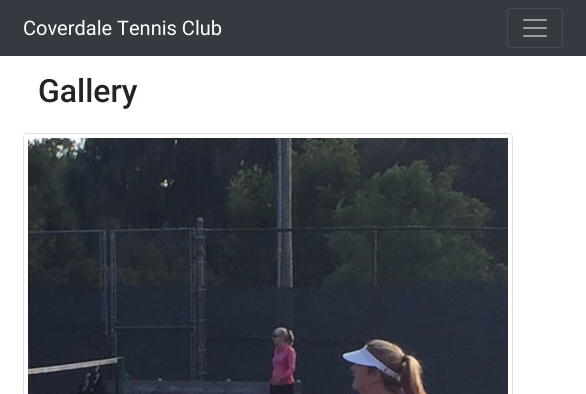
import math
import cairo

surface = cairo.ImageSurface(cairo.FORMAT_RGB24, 586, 394)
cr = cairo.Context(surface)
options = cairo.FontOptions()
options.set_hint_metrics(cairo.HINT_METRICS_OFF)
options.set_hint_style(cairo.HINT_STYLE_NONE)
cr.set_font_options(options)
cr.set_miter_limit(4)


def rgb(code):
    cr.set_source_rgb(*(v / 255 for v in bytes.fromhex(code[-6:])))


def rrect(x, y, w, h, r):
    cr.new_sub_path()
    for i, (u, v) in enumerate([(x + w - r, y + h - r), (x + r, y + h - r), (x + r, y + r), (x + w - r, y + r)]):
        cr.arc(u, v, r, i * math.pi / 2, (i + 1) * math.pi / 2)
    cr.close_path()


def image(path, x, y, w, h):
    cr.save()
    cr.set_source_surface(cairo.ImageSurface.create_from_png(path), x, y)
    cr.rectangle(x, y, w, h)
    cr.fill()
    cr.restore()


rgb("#ffffff")
cr.paint()
rgb("#343a40")
cr.rectangle(0, 0, 586, 56)
cr.fill()
rrect(507.5, 8.5, 55, 39, 3.5)
rgb("#484e53")
cr.set_line_width(1)
cr.stroke()
image("img/1.png", 523, 19, 24, 18)
rrect(23.5, 133.5, 489, 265, 3.5)
rgb("#dee2e6")
cr.stroke()
image("img/2.png", 28, 138, 480, 256)
cr.select_font_face("Roboto")
cr.set_font_size(20)
rgb("#ffffff")
cr.move_to(23, 35)
cr.show_text("Coverdale Tennis Club")
cr.select_font_face("Roboto Medium")
cr.set_font_size(32)
rgb("#212529")
cr.move_to(38, 102)
cr.show_text("Gallery")
surface.write_to_png("page.png")
